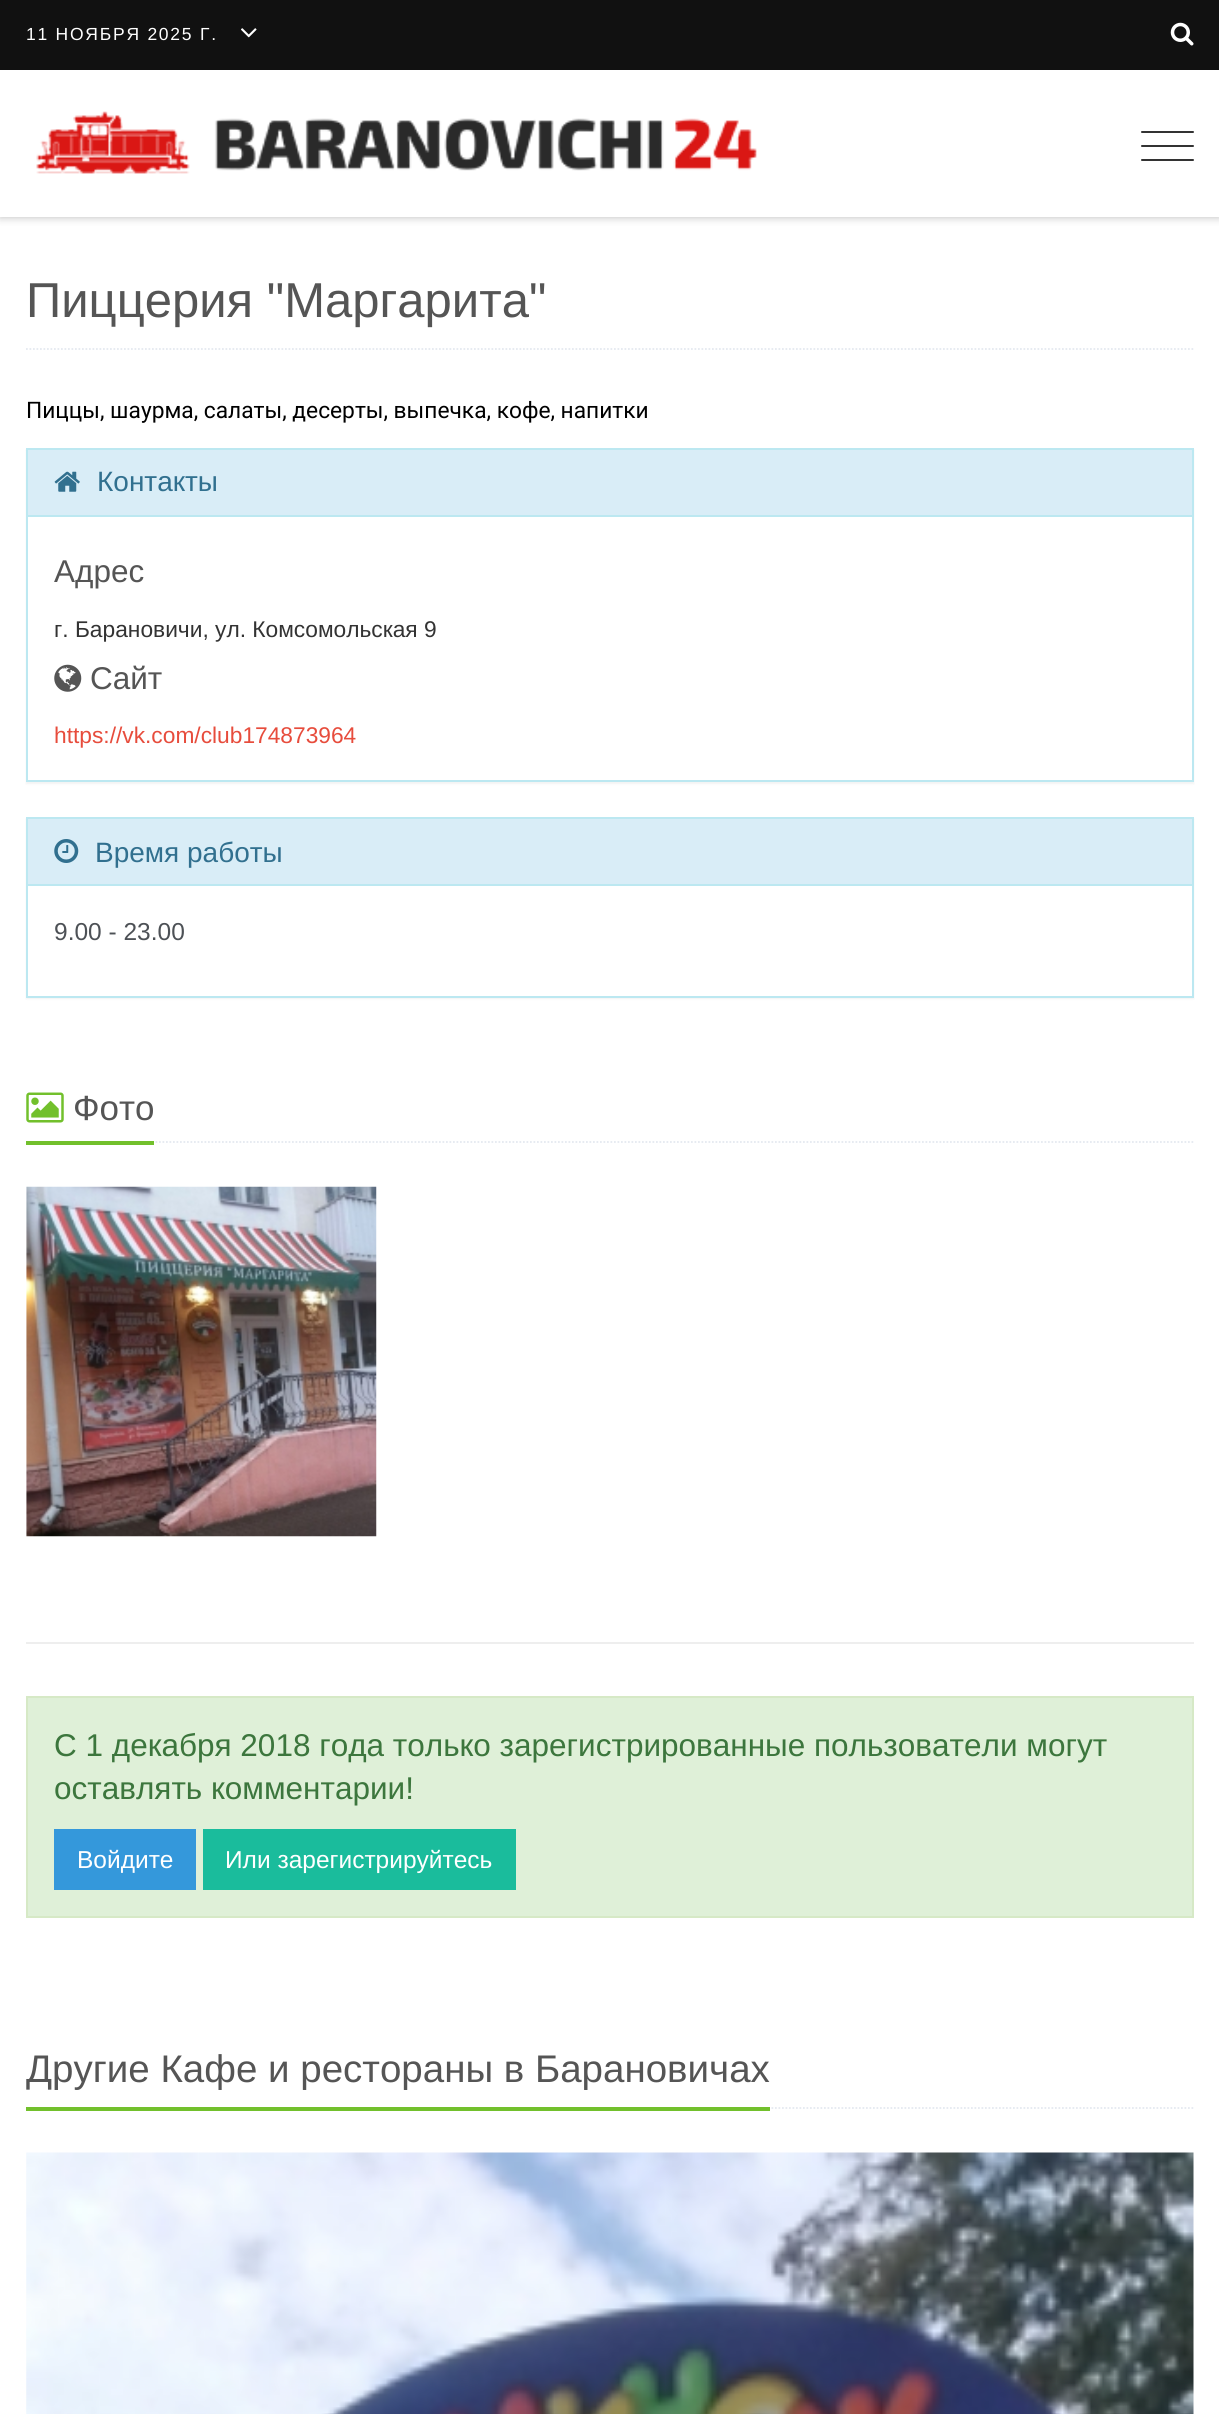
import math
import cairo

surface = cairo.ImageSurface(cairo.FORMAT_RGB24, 1219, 2414)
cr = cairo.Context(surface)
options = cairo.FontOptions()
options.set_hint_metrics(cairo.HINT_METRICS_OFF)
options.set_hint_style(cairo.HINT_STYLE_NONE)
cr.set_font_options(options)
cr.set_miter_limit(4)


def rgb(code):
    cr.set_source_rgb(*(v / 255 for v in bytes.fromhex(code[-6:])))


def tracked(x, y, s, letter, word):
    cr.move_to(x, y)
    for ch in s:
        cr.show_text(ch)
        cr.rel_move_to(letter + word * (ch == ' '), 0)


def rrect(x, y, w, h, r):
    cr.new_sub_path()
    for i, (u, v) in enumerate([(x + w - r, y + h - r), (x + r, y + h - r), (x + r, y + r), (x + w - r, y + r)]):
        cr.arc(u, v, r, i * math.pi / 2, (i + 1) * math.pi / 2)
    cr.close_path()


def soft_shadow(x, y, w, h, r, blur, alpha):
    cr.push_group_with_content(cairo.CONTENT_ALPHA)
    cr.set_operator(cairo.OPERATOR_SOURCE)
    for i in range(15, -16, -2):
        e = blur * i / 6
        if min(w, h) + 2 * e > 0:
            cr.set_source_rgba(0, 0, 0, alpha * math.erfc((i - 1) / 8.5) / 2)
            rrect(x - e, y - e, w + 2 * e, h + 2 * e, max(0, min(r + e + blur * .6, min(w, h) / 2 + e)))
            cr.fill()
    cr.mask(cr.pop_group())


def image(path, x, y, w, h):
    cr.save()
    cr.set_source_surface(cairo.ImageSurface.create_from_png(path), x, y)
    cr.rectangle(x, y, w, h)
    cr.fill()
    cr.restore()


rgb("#ffffff")
cr.paint()
cr.save()
cr.rectangle(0, 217, 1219, 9)
cr.clip()
rgb("#bbbbbb")
soft_shadow(0, 0, 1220, 217, 0, 4.5, 1)
cr.restore()
rgb("#111111")
cr.rectangle(0, 0, 1219, 70)
cr.fill()
image("img/1.png", 241, 28, 16, 10)
image("img/2.png", 1170, 22, 24, 24)
image("img/3.png", 36, 111, 721, 63)
rgb("#333333")
rrect(1141, 131, 53, 2, 1)
cr.fill()
rrect(1141, 145, 53, 2, 1)
cr.fill()
rrect(1141, 159, 53, 2, 1)
cr.fill()
cr.new_path()
cr.move_to(26, 349)
cr.line_to(1193.5, 349)
rgb("#e4e9f0")
cr.set_line_width(1.8)
cr.set_dash([1.75, 1.75])
cr.stroke()
rgb("#000000")
soft_shadow(26, 450, 1168, 334, 0, 1, 0.05)
rgb("#ffffff")
cr.rectangle(28, 517, 1164, 263)
cr.fill()
cr.rectangle(27, 449, 1166, 332)
rgb("#bce8f1")
cr.set_line_width(2)
cr.set_dash([])
cr.stroke()
rgb("#d9edf7")
cr.rectangle(28, 450, 1164, 65)
cr.fill()
rgb("#bce8f1")
cr.rectangle(28, 515, 1164, 2)
cr.fill()
image("img/4.png", 54, 471, 26, 21)
image("img/5.png", 54, 664, 28, 28)
rgb("#000000")
soft_shadow(26, 819, 1168, 180, 0, 1, 0.05)
rgb("#ffffff")
cr.rectangle(28, 886, 1164, 110)
cr.fill()
cr.rectangle(27, 818, 1166, 179)
rgb("#bce8f1")
cr.stroke()
rgb("#d9edf7")
cr.rectangle(28, 819, 1164, 65)
cr.fill()
rgb("#bce8f1")
cr.rectangle(28, 884, 1164, 2)
cr.fill()
image("img/6.png", 54, 839, 25, 24)
cr.new_path()
cr.move_to(26, 1142)
cr.line_to(1193.5, 1142)
rgb("#e4e9f0")
cr.set_line_width(1.8)
cr.set_dash([1.75, 1.75])
cr.stroke()
rgb("#72c02c")
cr.rectangle(26, 1141, 128, 4)
cr.fill()
image("img/7.png", 26, 1092, 38, 31)
image("img/8.png", 26, 1186, 351, 351)
rgb("#eeeeee")
cr.rectangle(26, 1642, 1168, 2)
cr.fill()
rgb("#dff0d8")
cr.rectangle(27, 1697, 1166, 220)
cr.fill_preserve()
rgb("#d6e9c6")
cr.set_line_width(2)
cr.set_dash([])
cr.stroke()
rgb("#3498db")
cr.rectangle(54, 1829, 142, 61)
cr.fill()
rgb("#1abc9c")
cr.rectangle(203, 1829, 313, 61)
cr.fill()
cr.new_path()
cr.move_to(26, 2108)
cr.line_to(1193.5, 2108)
rgb("#e4e9f0")
cr.set_line_width(1.8)
cr.set_dash([1.75, 1.75])
cr.stroke()
rgb("#72c02c")
cr.rectangle(26, 2107, 744, 4)
cr.fill()
image("img/9.png", 26, 2152, 1168, 262)
cr.select_font_face("Liberation Sans")
cr.set_font_size(17.5)
rgb("#ffffff")
tracked(26, 40, "11 НОЯБРЯ 2025 Г.", 1.75, 0)
cr.set_font_size(49)
rgb("#555555")
cr.move_to(26, 317)
cr.show_text("Пиццерия \"Маргарита\"")
cr.select_font_face("Roboto")
cr.set_font_size(22.75)
rgb("#000000")
cr.move_to(26, 418)
cr.show_text("Пиццы, шаурма, салаты, десерты, выпечка, кофе, напитки")
cr.select_font_face("Liberation Sans")
cr.set_font_size(28)
rgb("#31708f")
cr.move_to(97, 491)
cr.show_text("Контакты")
cr.set_font_size(31.5)
rgb("#555555")
cr.move_to(54, 582)
cr.show_text("Адрес")
cr.set_font_size(22.75)
rgb("#333333")
cr.move_to(54, 637)
cr.show_text("г. Барановичи, ул. Комсомольская 9")
cr.set_font_size(31.5)
rgb("#555555")
cr.move_to(90, 689)
cr.show_text("Сайт")
cr.set_font_size(22.75)
rgb("#e74c3c")
cr.move_to(54, 743)
cr.show_text("https://vk.com/club174873964")
cr.set_font_size(28)
rgb("#31708f")
cr.move_to(95, 862)
cr.show_text("Время работы")
cr.set_font_size(24.5)
rgb("#4d5156")
cr.move_to(54, 940)
cr.show_text("9.00 - 23.00")
cr.set_font_size(35)
rgb("#555555")
cr.move_to(73, 1120)
cr.show_text("Фото")
cr.set_font_size(31.5)
rgb("#3c763d")
cr.move_to(54, 1756)
cr.show_text("С 1 декабря 2018 года только зарегистрированные пользователи могут")
cr.move_to(54, 1799)
cr.show_text("оставлять комментарии!")
cr.set_font_size(24.5)
rgb("#ffffff")
cr.move_to(77, 1868)
cr.show_text("Войдите")
cr.move_to(225, 1868)
cr.show_text("Или зарегистрируйтесь")
cr.set_font_size(38.5)
rgb("#555555")
cr.move_to(26, 2082)
cr.show_text("Другие Кафе и рестораны в Барановичах")
surface.write_to_png("page.png")
